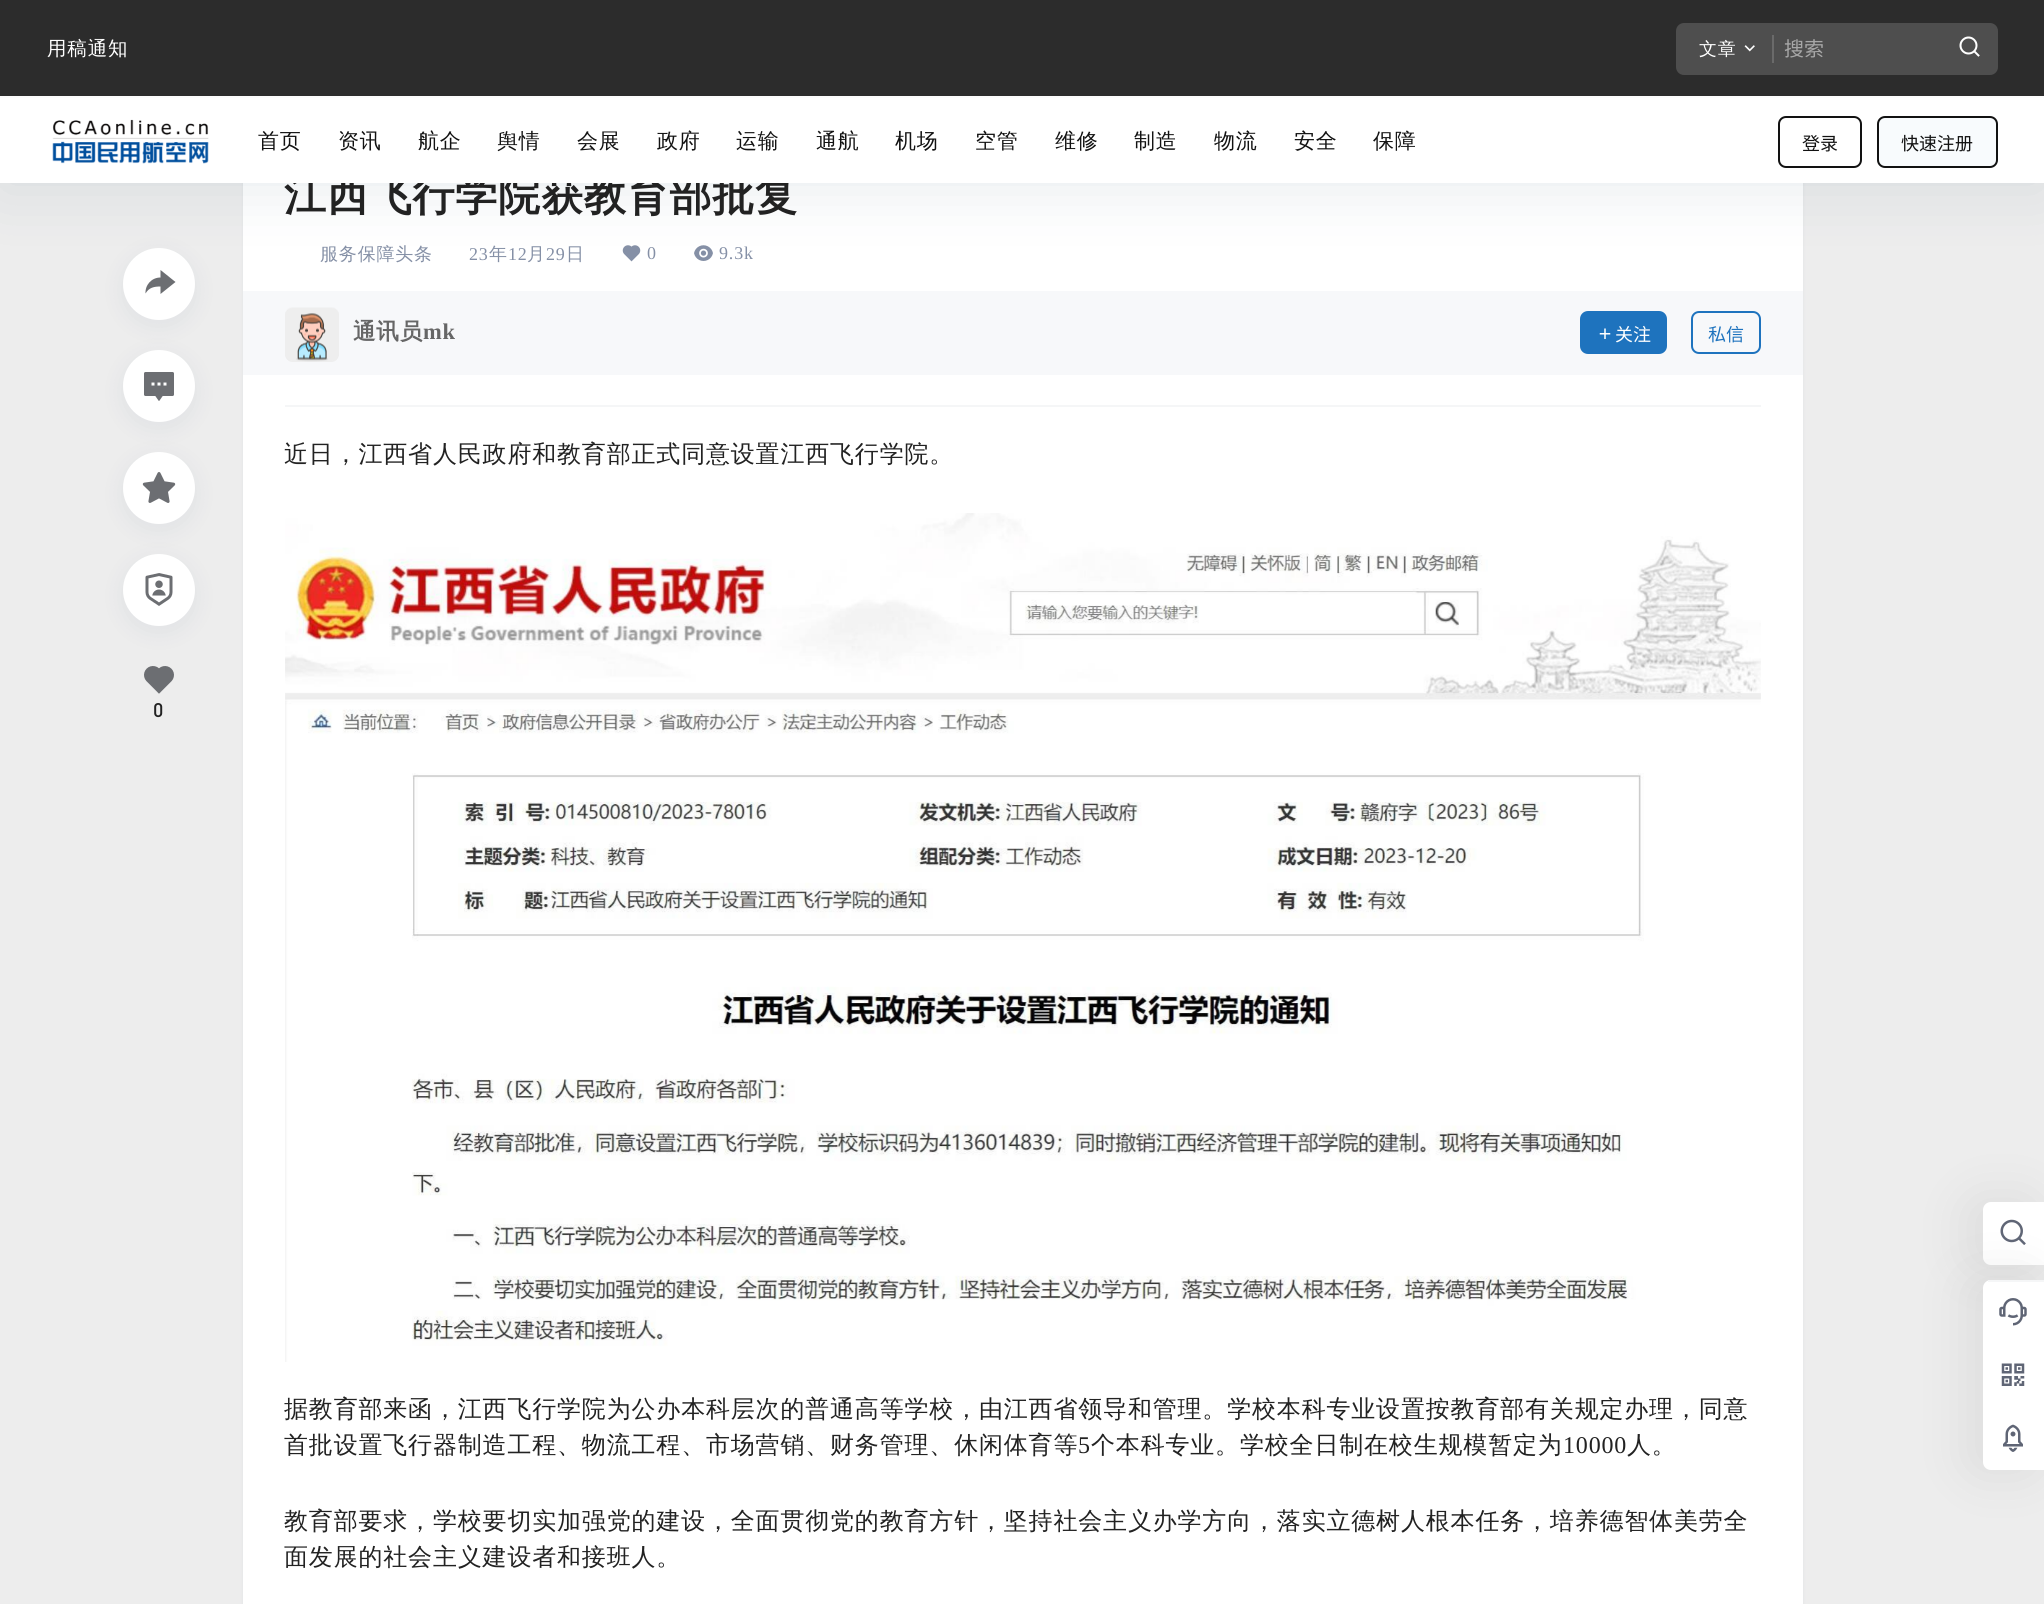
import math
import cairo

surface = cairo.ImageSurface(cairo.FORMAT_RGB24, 2044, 1604)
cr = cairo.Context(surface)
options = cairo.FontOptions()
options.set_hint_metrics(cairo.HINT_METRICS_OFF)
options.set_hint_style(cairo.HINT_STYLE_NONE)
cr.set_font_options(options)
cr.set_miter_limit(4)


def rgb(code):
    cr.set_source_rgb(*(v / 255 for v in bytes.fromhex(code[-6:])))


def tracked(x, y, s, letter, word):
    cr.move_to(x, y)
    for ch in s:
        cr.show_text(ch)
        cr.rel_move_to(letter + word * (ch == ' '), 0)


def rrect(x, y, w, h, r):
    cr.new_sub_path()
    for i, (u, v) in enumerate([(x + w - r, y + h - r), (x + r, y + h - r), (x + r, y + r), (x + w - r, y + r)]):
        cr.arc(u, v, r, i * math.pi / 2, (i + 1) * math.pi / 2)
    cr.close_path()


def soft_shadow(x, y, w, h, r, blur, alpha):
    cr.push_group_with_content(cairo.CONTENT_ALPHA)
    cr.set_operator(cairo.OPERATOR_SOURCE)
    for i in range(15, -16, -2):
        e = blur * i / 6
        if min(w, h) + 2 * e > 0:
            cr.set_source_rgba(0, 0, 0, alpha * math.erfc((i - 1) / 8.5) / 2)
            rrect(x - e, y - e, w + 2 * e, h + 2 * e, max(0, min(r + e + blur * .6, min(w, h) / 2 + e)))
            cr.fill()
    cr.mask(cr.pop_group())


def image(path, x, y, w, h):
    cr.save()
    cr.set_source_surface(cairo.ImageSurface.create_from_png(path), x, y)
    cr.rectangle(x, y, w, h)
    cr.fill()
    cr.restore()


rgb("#ededed")
cr.paint()
rgb("#627c99")
soft_shadow(243, 128, 1560, 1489, 8, 1.5, 0.1)
rgb("#ffffff")
cr.rectangle(243, 183, 1560, 1421)
cr.fill()
image("img/4.png", 622, 245, 19, 17)
image("img/5.png", 694, 245, 19, 16)
rgb("#0d275b")
soft_shadow(123, 254, 72, 72, 36, 12, 0.06)
rgb("#ffffff")
cr.arc(159, 284, 36, 0, 2 * math.pi)
cr.fill()
rgb("#6c6e72")
cr.new_path()
cr.move_to(160.5, 286.5)
cr.curve_to(154, 286.5, 149, 287.5, 145.5, 293.5)
cr.curve_to(145, 285, 151.5, 277.5, 160.5, 277.5)
cr.line_to(160.5, 270)
cr.line_to(175.5, 282)
cr.line_to(160.5, 294)
cr.close_path()
cr.fill()
rgb("#113a5d")
soft_shadow(0, 8, 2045, 183, 0, 30, 0.1)
rgb("#2c2c2c")
cr.rectangle(0, 0, 2044, 96)
cr.fill()
rgb("#4e4e4e")
rrect(1676, 23, 322, 52, 8)
cr.fill()
rgb("#6a6a6a")
cr.rectangle(1772, 35, 2, 28)
cr.fill()
image("img/1.png", 1744, 45, 11, 7)
image("img/2.png", 1959, 36, 21, 21)
for x, y, w, h, color in [
    (0, 96, 2044, 2, "#fcfcfc"),
    (285, 405, 1476, 2, "#f5f6f7"),
    (243, 291, 1560, 84, "#f7f8fa"),
]:
    rgb(color)
    cr.rectangle(x, y, w, h)
    cr.fill()
rgb("#eeeeee")
rrect(285, 308, 54, 54, 8)
cr.fill()
image("img/6.png", 285, 307, 54, 55)
rgb("#1e73be")
rrect(1581, 312, 85, 41, 7)
cr.fill_preserve()
cr.stroke()
image("img/7.png", 1599, 328, 12, 11)
rrect(1692, 312, 68, 41, 7)
cr.stroke()
rgb("#0d275b")
soft_shadow(123, 356, 72, 72, 36, 12, 0.06)
rgb("#ffffff")
cr.arc(159, 386, 36, 0, 2 * math.pi)
cr.fill()
image("img/8.png", 144, 372, 30, 29)
rgb("#0d275b")
soft_shadow(123, 458, 72, 72, 36, 12, 0.06)
rgb("#ffffff")
cr.arc(159, 488, 36, 0, 2 * math.pi)
cr.fill()
image("img/9.png", 142, 472, 34, 31)
image("img/11.png", 144, 666, 30, 28)
rgb("#0d275b")
soft_shadow(123, 560, 72, 72, 36, 12, 0.06)
rgb("#ffffff")
cr.arc(159, 590, 36, 0, 2 * math.pi)
cr.fill()
image("img/10.png", 145, 573, 28, 33)
image("img/12.png", 285, 513, 1476, 849)
rgb("#b5b5b5")
soft_shadow(1971, 1202, 62, 63, 8, 26, 0.32)
rgb("#ffffff")
cr.new_path()
cr.move_to(1991, 1202)
cr.line_to(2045, 1202)
cr.line_to(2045, 1265)
cr.line_to(1991, 1265)
cr.curve_to(1986.5, 1265, 1983, 1261.5, 1983, 1257)
cr.line_to(1983, 1210)
cr.curve_to(1983, 1205.5, 1986.5, 1202, 1991, 1202)
cr.close_path()
cr.fill()
image("img/13.png", 2000, 1219, 26, 26)
rgb("#b5b5b5")
soft_shadow(1971, 1280, 62, 190, 8, 26, 0.32)
rgb("#ffffff")
cr.new_path()
cr.move_to(1991, 1280)
cr.line_to(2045, 1280)
cr.line_to(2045, 1470)
cr.line_to(1991, 1470)
cr.curve_to(1986.5, 1470, 1983, 1466.5, 1983, 1462)
cr.line_to(1983, 1288)
cr.curve_to(1983, 1283.5, 1986.5, 1280, 1991, 1280)
cr.close_path()
cr.fill()
rgb("#f5f6f7")
cr.rectangle(1988, 1280, 56, 2)
cr.fill()
image("img/14.png", 1999, 1298, 28, 28)
image("img/15.png", 2001, 1363, 24, 23)
image("img/16.png", 2003, 1424, 20, 28)
cr.select_font_face("WenQuanYi Zen Hei Medium")
cr.set_font_size(19.5)
rgb("#ffffff")
tracked(47, 55, "用稿通知", 0.82, 0)
cr.set_font_size(18)
tracked(1699, 55, "文章", 0.82, 0)
cr.select_font_face("Noto Sans CJK SC")
cr.set_font_size(20)
rgb("#a7a7a7")
cr.move_to(1784, 56)
cr.show_text("搜索")
cr.select_font_face("WenQuanYi Zen Hei", cairo.FONT_SLANT_NORMAL, cairo.FONT_WEIGHT_BOLD)
cr.set_font_size(42)
rgb("#222222")
tracked(284, 210, "江西飞行学院获教育部批复", 0.82, 0)
rgb("#ffffff")
cr.rectangle(0, 98, 2044, 85)
cr.fill()
cr.select_font_face("WenQuanYi Zen Hei Medium")
cr.set_font_size(21)
rgb("#121212")
for x, y, s in [
    (1373, 148, "保障"),
    (1294, 148, "安全"),
    (1214, 148, "物流"),
    (1134, 148, "制造"),
    (1055, 148, "维修"),
    (975, 148, "空管"),
    (895, 148, "机场"),
    (816, 148, "通航"),
    (736, 148, "运输"),
    (657, 148, "政府"),
    (577, 148, "会展"),
    (497, 148, "舆情"),
    (418, 148, "航企"),
    (338, 148, "资讯"),
    (258, 148, "首页"),
]:
    tracked(x, y, s, 0.82, 0)
rgb("#f8fbfd")
rrect(1878, 117, 119, 50, 7)
cr.fill_preserve()
rgb("#121212")
cr.stroke()
cr.select_font_face("Noto Sans CJK SC")
cr.set_font_size(18)
cr.move_to(1901, 150)
cr.show_text("快速注册")
rrect(1779, 117, 82, 50, 7)
cr.stroke()
cr.move_to(1802, 150)
cr.show_text("登录")
image("img/3.png", 52, 119, 157, 45)
cr.select_font_face("WenQuanYi Zen Hei Medium")
rgb("#8590a6")
tracked(320, 260, "服务保障头条", 0.82, 0)
cr.select_font_face("Liberation Serif")
tracked(469, 260, "23", 0.82, 0)
cr.select_font_face("WenQuanYi Zen Hei Medium")
tracked(489, 260, "年", 0.82, 0)
cr.select_font_face("Liberation Serif")
tracked(508, 260, "12", 0.82, 0)
cr.select_font_face("WenQuanYi Zen Hei Medium")
tracked(527, 260, "月", 0.82, 0)
cr.select_font_face("Liberation Serif")
tracked(546, 260, "29", 0.82, 0)
cr.select_font_face("WenQuanYi Zen Hei Medium")
tracked(566, 260, "日", 0.82, 0)
cr.select_font_face("Liberation Serif")
tracked(647, 259, "0", 0.82, 0)
tracked(719, 259, "9.3k", 0.82, 0)
cr.select_font_face("WenQuanYi Zen Hei", cairo.FONT_SLANT_NORMAL, cairo.FONT_WEIGHT_BOLD)
cr.set_font_size(22.5)
rgb("#666666")
tracked(353, 339, "通讯员", 0.82, 0)
cr.select_font_face("Liberation Serif", cairo.FONT_SLANT_NORMAL, cairo.FONT_WEIGHT_BOLD)
tracked(423, 339, "mk", 0.82, 0)
cr.select_font_face("Noto Sans CJK SC")
cr.set_font_size(18)
rgb("#ffffff")
cr.move_to(1615, 341)
cr.show_text("关注")
rgb("#1e73be")
cr.move_to(1708, 341)
cr.show_text("私信")
cr.select_font_face("DIN Medium")
cr.set_font_size(19.5)
rgb("#222222")
tracked(153, 717, "0", 0.82, 0)
cr.select_font_face("WenQuanYi Zen Hei Medium")
cr.set_font_size(24)
for x, y, s in [
    (284, 462, "近日，江西省人民政府和教育部正式同意设置江西飞行学院。"),
    (284, 1417, "据教育部来函，江西飞行学院为公办本科层次的普通高等学校，由江西省领导和管理。学校本科专业设置按教育部有关规定办理，同意"),
    (284, 1453, "首批设置飞行器制造工程、物流工程、市场营销、财务管理、休闲体育等"),
]:
    tracked(x, y, s, 0.82, 0)
cr.select_font_face("Liberation Serif")
tracked(1078, 1453, "5", 0.82, 0)
cr.select_font_face("WenQuanYi Zen Hei Medium")
tracked(1091, 1453, "个本科专业。学校全日制在校生规模暂定为", 0.82, 0)
cr.select_font_face("Liberation Serif")
tracked(1563, 1453, "10000", 0.82, 0)
cr.select_font_face("WenQuanYi Zen Hei Medium")
for x, y, s in [
    (1627, 1453, "人。"),
    (284, 1529, "教育部要求，学校要切实加强党的建设，全面贯彻党的教育方针，坚持社会主义办学方向，落实立德树人根本任务，培养德智体美劳全"),
    (284, 1565, "面发展的社会主义建设者和接班人。"),
]:
    tracked(x, y, s, 0.82, 0)
surface.write_to_png("page.png")
